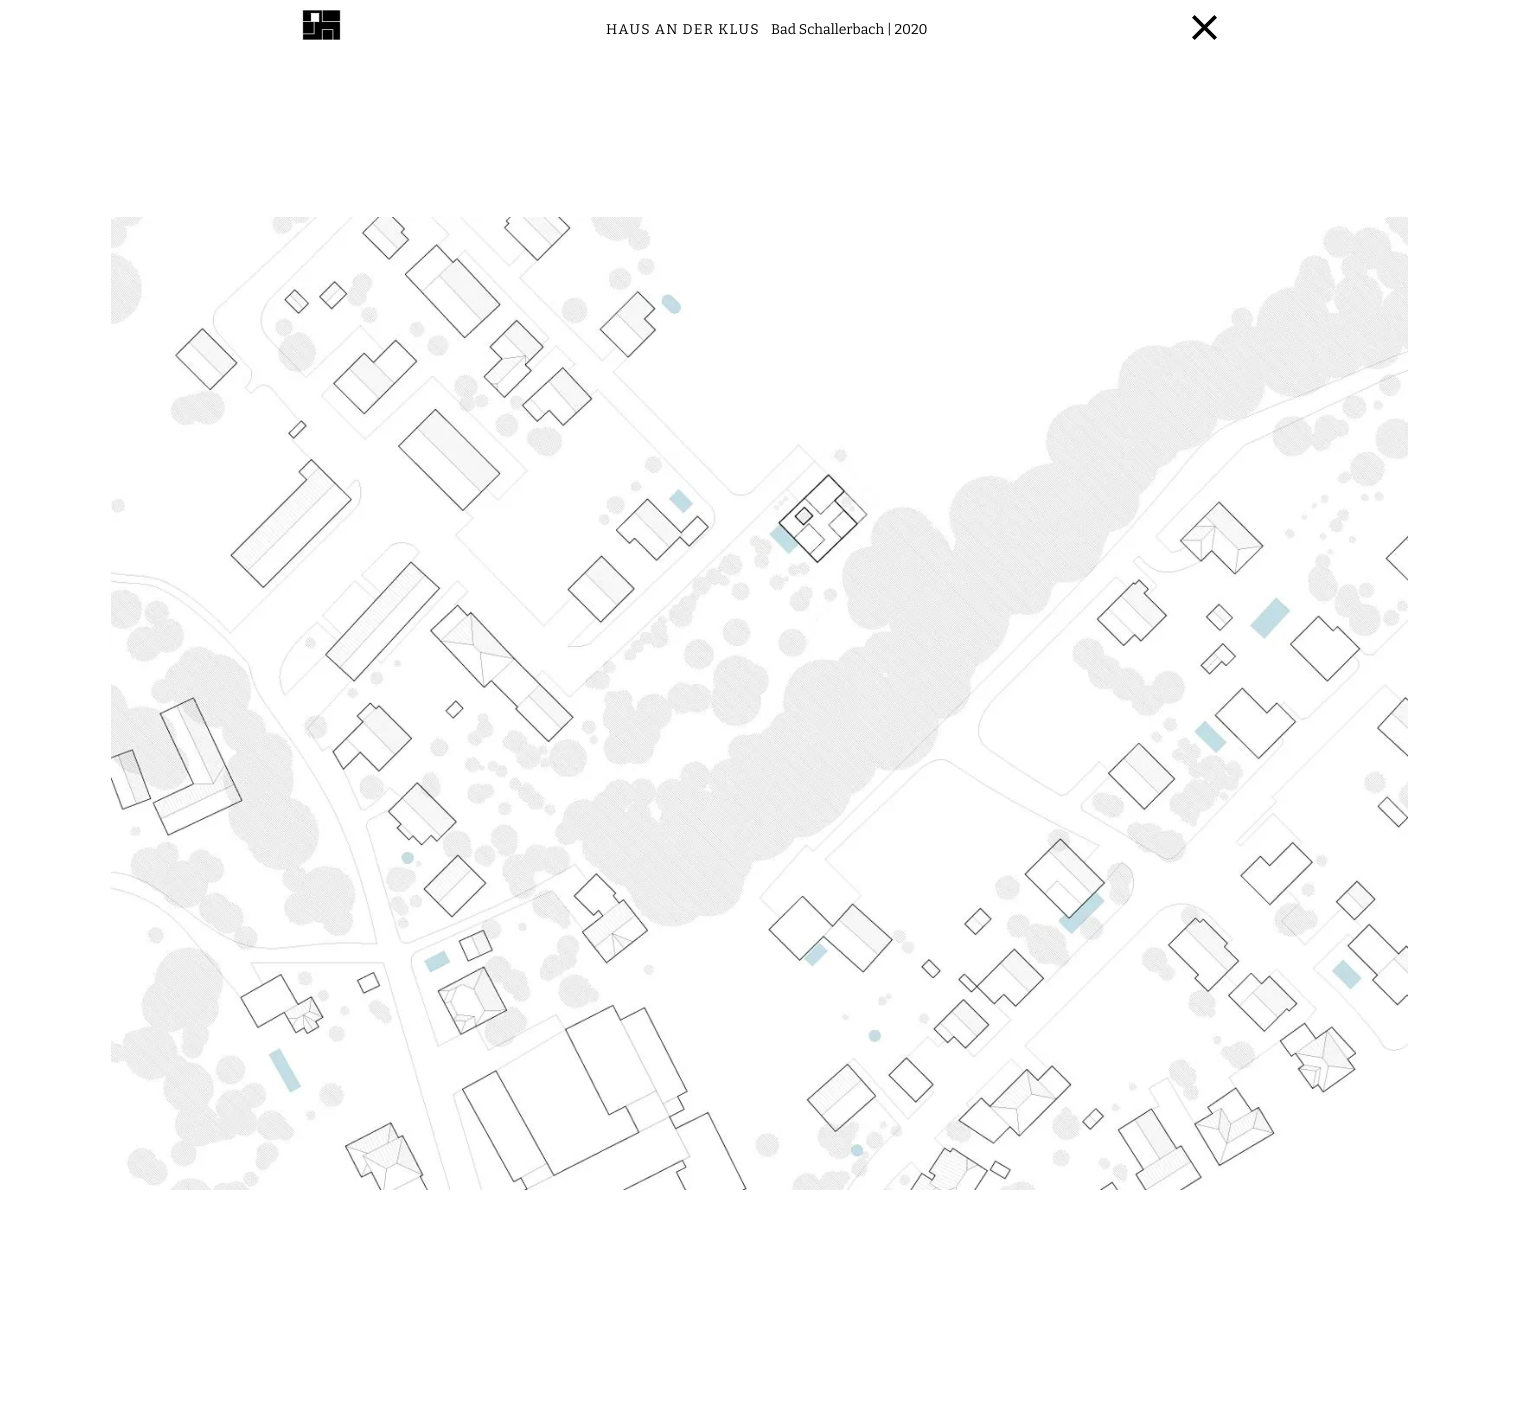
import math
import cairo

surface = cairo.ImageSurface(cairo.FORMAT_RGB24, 1518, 1402)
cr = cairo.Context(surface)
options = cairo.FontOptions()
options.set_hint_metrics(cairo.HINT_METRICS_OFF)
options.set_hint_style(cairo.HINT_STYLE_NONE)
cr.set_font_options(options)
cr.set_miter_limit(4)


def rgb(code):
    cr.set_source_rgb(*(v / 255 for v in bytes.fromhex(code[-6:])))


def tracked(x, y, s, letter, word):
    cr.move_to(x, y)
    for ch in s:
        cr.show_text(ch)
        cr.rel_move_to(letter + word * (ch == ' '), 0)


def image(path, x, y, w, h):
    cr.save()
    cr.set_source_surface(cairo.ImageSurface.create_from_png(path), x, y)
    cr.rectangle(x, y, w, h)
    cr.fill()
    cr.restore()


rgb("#ffffff")
cr.paint()
image("img/1.png", 302, 10, 39, 30)
image("img/2.png", 1192, 15, 25, 25)
image("img/3.png", 111, 217, 1297, 973)
cr.select_font_face("Bitter")
cr.set_font_size(14)
rgb("#000000")
tracked(606, 34, "HAUS AN DER KLUS", 1.25, 0)
cr.move_to(771, 34)
cr.show_text("Bad Schallerbach | 2020")
surface.write_to_png("page.png")
